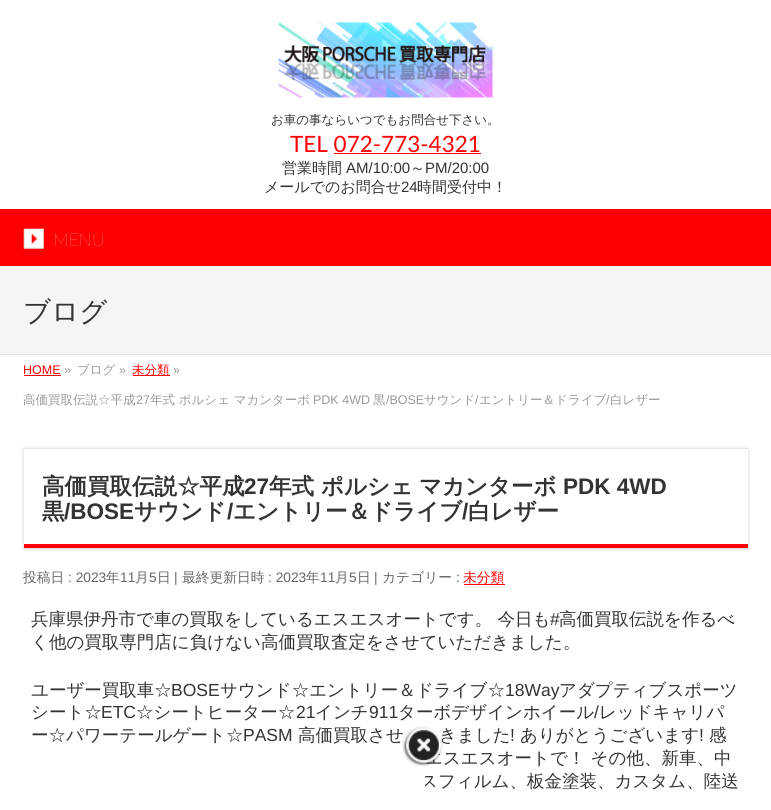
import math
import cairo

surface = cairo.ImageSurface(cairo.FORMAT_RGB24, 771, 810)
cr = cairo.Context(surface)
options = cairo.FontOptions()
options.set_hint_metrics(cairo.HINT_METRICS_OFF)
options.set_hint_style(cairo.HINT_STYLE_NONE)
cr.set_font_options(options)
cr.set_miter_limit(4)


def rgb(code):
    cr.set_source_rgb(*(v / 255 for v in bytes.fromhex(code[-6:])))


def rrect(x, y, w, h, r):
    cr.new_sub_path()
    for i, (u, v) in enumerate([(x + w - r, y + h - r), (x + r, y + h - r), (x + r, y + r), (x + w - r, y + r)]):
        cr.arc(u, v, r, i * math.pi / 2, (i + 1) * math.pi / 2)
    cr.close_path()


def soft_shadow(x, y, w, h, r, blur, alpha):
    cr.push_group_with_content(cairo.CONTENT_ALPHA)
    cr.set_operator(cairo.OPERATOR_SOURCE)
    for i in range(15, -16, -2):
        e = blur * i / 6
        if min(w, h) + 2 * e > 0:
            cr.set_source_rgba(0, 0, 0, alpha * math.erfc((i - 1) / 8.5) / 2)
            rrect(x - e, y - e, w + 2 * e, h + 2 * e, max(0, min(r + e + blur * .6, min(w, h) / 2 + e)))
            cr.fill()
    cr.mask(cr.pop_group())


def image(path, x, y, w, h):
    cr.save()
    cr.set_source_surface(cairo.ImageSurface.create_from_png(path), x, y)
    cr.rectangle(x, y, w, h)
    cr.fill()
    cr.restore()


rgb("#ffffff")
cr.paint()
image("img/1.png", 278, 22, 215, 76)
rgb("#ff0000")
cr.rectangle(334, 153, 147, 1)
cr.fill()
cr.rectangle(0, 209, 771, 57)
cr.fill()
image("img/2.png", 23, 228, 21, 21)
for x, y, w, h, color in [
    (0, 266, 771, 88, "#f5f5f5"),
    (0, 354, 771, 1, "#e5e5e5"),
    (24, 375, 37, 1, "#ff0000"),
    (133, 375, 37, 1, "#ff0000"),
]:
    rgb(color)
    cr.rectangle(x, y, w, h)
    cr.fill()
cr.save()
cr.set_fill_rule(cairo.FILL_RULE_EVEN_ODD)
cr.new_path()
cr.move_to(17, 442)
cr.line_to(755, 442)
cr.line_to(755, 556)
cr.line_to(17, 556)
cr.close_path()
cr.move_to(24, 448)
cr.line_to(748, 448)
cr.line_to(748, 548)
cr.line_to(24, 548)
cr.close_path()
cr.clip()
rgb("#000000")
soft_shadow(24, 449, 724, 100, 0, 2, 0.2)
cr.restore()
for x, y, w, h, color in [
    (747, 449, 1, 1, "#fafafa"),
    (24, 448, 724, 1, "#e5e5e5"),
    (24, 544, 724, 4, "#ff0000"),
    (464, 584, 41, 1, "#ff0000"),
]:
    rgb(color)
    cr.rectangle(x, y, w, h)
    cr.fill()
cr.select_font_face("WenQuanYi Zen Hei Medium")
cr.set_font_size(12.5)
rgb("#333333")
cr.move_to(271, 124)
cr.show_text("お車の事ならいつでもお問合せ下さい。")
cr.select_font_face("Lato")
cr.set_font_size(22.5)
rgb("#ff0000")
cr.move_to(290, 152)
cr.show_text("TEL 072-773-4321")
cr.select_font_face("WenQuanYi Zen Hei Medium")
cr.set_font_size(15)
rgb("#333333")
cr.move_to(282, 173)
cr.show_text("営業時間")
cr.select_font_face("Liberation Sans")
cr.move_to(346, 173)
cr.show_text("AM/10:00")
cr.select_font_face("WenQuanYi Zen Hei Medium")
cr.move_to(410, 173)
cr.show_text("～")
cr.select_font_face("Liberation Sans")
cr.move_to(425, 173)
cr.show_text("PM/20:00")
cr.select_font_face("WenQuanYi Zen Hei Medium")
cr.move_to(264, 192)
cr.show_text("メールでのお問合せ")
cr.select_font_face("Liberation Sans")
cr.move_to(401, 192)
cr.show_text("24")
cr.select_font_face("WenQuanYi Zen Hei Medium")
cr.move_to(417, 192)
cr.show_text("時間受付中！")
cr.select_font_face("Lato ExtraLight")
cr.set_font_size(17.5)
rgb("#ffffff")
cr.move_to(53, 246)
cr.show_text("MENU")
cr.select_font_face("WenQuanYi Zen Hei Medium")
cr.set_font_size(27.5)
rgb("#333333")
cr.move_to(23, 321)
cr.show_text("ブログ")
cr.select_font_face("Liberation Sans")
cr.set_font_size(12.5)
rgb("#ff0000")
cr.move_to(23, 374)
cr.show_text("HOME")
rgb("#999999")
cr.move_to(64, 374)
cr.show_text("»")
cr.select_font_face("WenQuanYi Zen Hei Medium")
cr.move_to(77, 374)
cr.show_text("ブログ")
cr.select_font_face("Liberation Sans")
cr.move_to(119, 374)
cr.show_text("»")
cr.select_font_face("WenQuanYi Zen Hei Medium")
rgb("#ff0000")
cr.move_to(132, 374)
cr.show_text("未分類")
cr.select_font_face("Liberation Sans")
rgb("#999999")
cr.move_to(173, 374)
cr.show_text("»")
cr.select_font_face("WenQuanYi Zen Hei Medium")
for x, y, s in [
    (23, 404, "高価買取伝説☆平成"),
    (150, 404, "年式 ポルシェ マカンターボ"),
    (373, 404, "黒"),
]:
    cr.move_to(x, y)
    cr.show_text(s)
cr.select_font_face("Liberation Sans")
cr.move_to(386, 404)
cr.show_text("/BOSE")
cr.select_font_face("WenQuanYi Zen Hei Medium")
cr.move_to(424, 404)
cr.show_text("サウンド エントリー＆ドライブ 白レザー")
cr.select_font_face("Liberation Sans")
for x, y, s in [
    (136, 404, "27"),
    (313, 404, "PDK 4WD"),
    (475, 404, "/"),
    (606, 404, "/"),
]:
    cr.move_to(x, y)
    cr.show_text(s)
cr.select_font_face("WenQuanYi Zen Hei", cairo.FONT_SLANT_NORMAL, cairo.FONT_WEIGHT_BOLD)
cr.set_font_size(22.5)
rgb("#333333")
cr.move_to(42, 494)
cr.show_text("高価買取伝説☆平成")
cr.select_font_face("Liberation Sans", cairo.FONT_SLANT_NORMAL, cairo.FONT_WEIGHT_BOLD)
cr.move_to(244, 494)
cr.show_text("27")
cr.select_font_face("WenQuanYi Zen Hei", cairo.FONT_SLANT_NORMAL, cairo.FONT_WEIGHT_BOLD)
for x, y, s in [
    (269, 494, "年式"),
    (321, 494, "ポルシェ"),
    (419, 494, "マカンターボ"),
]:
    cr.move_to(x, y)
    cr.show_text(s)
cr.select_font_face("Liberation Sans", cairo.FONT_SLANT_NORMAL, cairo.FONT_WEIGHT_BOLD)
cr.move_to(563, 494)
cr.show_text("PDK 4WD")
cr.select_font_face("WenQuanYi Zen Hei", cairo.FONT_SLANT_NORMAL, cairo.FONT_WEIGHT_BOLD)
cr.move_to(42, 519)
cr.show_text("黒")
cr.select_font_face("Liberation Sans", cairo.FONT_SLANT_NORMAL, cairo.FONT_WEIGHT_BOLD)
cr.move_to(64, 519)
cr.show_text("/BOSE")
cr.select_font_face("WenQuanYi Zen Hei", cairo.FONT_SLANT_NORMAL, cairo.FONT_WEIGHT_BOLD)
cr.move_to(134, 519)
cr.show_text("サウンド")
cr.select_font_face("Liberation Sans", cairo.FONT_SLANT_NORMAL, cairo.FONT_WEIGHT_BOLD)
cr.move_to(227, 519)
cr.show_text("/")
cr.select_font_face("WenQuanYi Zen Hei", cairo.FONT_SLANT_NORMAL, cairo.FONT_WEIGHT_BOLD)
cr.move_to(233, 519)
cr.show_text("エントリー＆ドライブ")
cr.select_font_face("Liberation Sans", cairo.FONT_SLANT_NORMAL, cairo.FONT_WEIGHT_BOLD)
cr.move_to(462, 519)
cr.show_text("/")
cr.select_font_face("WenQuanYi Zen Hei", cairo.FONT_SLANT_NORMAL, cairo.FONT_WEIGHT_BOLD)
cr.move_to(468, 519)
cr.show_text("白レザー")
cr.select_font_face("WenQuanYi Zen Hei Medium")
cr.set_font_size(13.75)
rgb("#666666")
cr.move_to(23, 582)
cr.show_text("投稿日")
cr.select_font_face("Liberation Sans")
cr.move_to(68, 582)
cr.show_text(": 2023")
cr.select_font_face("WenQuanYi Zen Hei Medium")
cr.move_to(106, 582)
cr.show_text("年")
cr.select_font_face("Liberation Sans")
cr.move_to(120, 582)
cr.show_text("11")
cr.select_font_face("WenQuanYi Zen Hei Medium")
cr.move_to(135, 582)
cr.show_text("月")
cr.select_font_face("Liberation Sans")
cr.move_to(149, 582)
cr.show_text("5")
cr.select_font_face("WenQuanYi Zen Hei Medium")
cr.move_to(157, 582)
cr.show_text("日")
cr.select_font_face("Liberation Sans")
cr.move_to(174, 582)
cr.show_text("|")
cr.select_font_face("WenQuanYi Zen Hei Medium")
cr.move_to(182, 582)
cr.show_text("最終更新日時")
cr.select_font_face("Liberation Sans")
cr.move_to(268, 582)
cr.show_text(": 2023")
cr.select_font_face("WenQuanYi Zen Hei Medium")
cr.move_to(306, 582)
cr.show_text("年")
cr.select_font_face("Liberation Sans")
cr.move_to(320, 582)
cr.show_text("11")
cr.select_font_face("WenQuanYi Zen Hei Medium")
cr.move_to(335, 582)
cr.show_text("月")
cr.select_font_face("Liberation Sans")
cr.move_to(349, 582)
cr.show_text("5")
cr.select_font_face("WenQuanYi Zen Hei Medium")
cr.move_to(357, 582)
cr.show_text("日")
cr.select_font_face("Liberation Sans")
cr.move_to(374, 582)
cr.show_text("|")
cr.select_font_face("WenQuanYi Zen Hei Medium")
cr.move_to(382, 582)
cr.show_text("カテゴリー")
cr.select_font_face("Liberation Sans")
cr.move_to(456, 582)
cr.show_text(":")
cr.select_font_face("WenQuanYi Zen Hei Medium")
rgb("#ff0000")
cr.move_to(463, 582)
cr.show_text("未分類")
cr.set_font_size(17.5)
rgb("#333333")
cr.move_to(31, 625)
cr.show_text("兵庫県伊丹市で車の買取をしているエスエスオートです。 今日も")
cr.select_font_face("Liberation Sans")
cr.move_to(550, 625)
cr.show_text("#")
cr.select_font_face("WenQuanYi Zen Hei Medium")
for x, y, s in [
    (559, 625, "高価買取伝説を作るべ"),
    (31, 648, "く他の買取専門店に負けない高価買取査定をさせていただきました。"),
    (31, 696, "ユーザー買取車☆"),
]:
    cr.move_to(x, y)
    cr.show_text(s)
cr.select_font_face("Liberation Sans")
cr.move_to(171, 696)
cr.show_text("BOSE")
cr.select_font_face("WenQuanYi Zen Hei Medium")
cr.move_to(220, 696)
cr.show_text("サウンド☆エントリー＆ドライブ☆")
cr.select_font_face("Liberation Sans")
cr.move_to(505, 696)
cr.show_text("18Way")
cr.select_font_face("WenQuanYi Zen Hei Medium")
cr.move_to(559, 696)
cr.show_text("アダプティブスポーツ")
cr.move_to(31, 718)
cr.show_text("シート☆")
cr.select_font_face("Liberation Sans")
cr.move_to(101, 718)
cr.show_text("ETC")
cr.select_font_face("WenQuanYi Zen Hei Medium")
cr.move_to(136, 718)
cr.show_text("☆シートヒーター☆")
cr.select_font_face("Liberation Sans")
cr.move_to(296, 718)
cr.show_text("21")
cr.select_font_face("WenQuanYi Zen Hei Medium")
cr.move_to(315, 718)
cr.show_text("インチ")
cr.select_font_face("Liberation Sans")
cr.move_to(369, 718)
cr.show_text("911")
cr.select_font_face("WenQuanYi Zen Hei Medium")
cr.move_to(398, 718)
cr.show_text("ターボデザインホイール")
cr.select_font_face("Liberation Sans")
cr.move_to(594, 718)
cr.show_text("/")
cr.select_font_face("WenQuanYi Zen Hei Medium")
cr.move_to(599, 718)
cr.show_text("レッドキャリパ")
cr.move_to(31, 741)
cr.show_text("ー☆パワーテールゲート☆")
cr.select_font_face("Liberation Sans")
cr.move_to(243, 741)
cr.show_text("PASM")
cr.select_font_face("WenQuanYi Zen Hei Medium")
cr.move_to(298, 741)
cr.show_text("高価買取させ")
cr.move_to(439, 741)
cr.show_text("きました")
cr.select_font_face("Liberation Sans")
cr.move_to(510, 741)
cr.show_text("!")
cr.select_font_face("WenQuanYi Zen Hei Medium")
cr.move_to(520, 741)
cr.show_text("ありがとうございます")
cr.select_font_face("Liberation Sans")
cr.move_to(699, 741)
cr.show_text("!")
cr.select_font_face("WenQuanYi Zen Hei Medium")
for x, y, s in [
    (709, 741, "感"),
    (425, 764, "エスエスオートで！ その他、新車、中"),
    (420, 787, "スフィルム、板金塗装、カスタム、陸送"),
]:
    cr.move_to(x, y)
    cr.show_text(s)
rgb("#ffffff")
cr.rectangle(421, 776, 4, 12)
cr.fill()
image("img/3.png", 402, 726, 41, 40)
surface.write_to_png("page.png")
